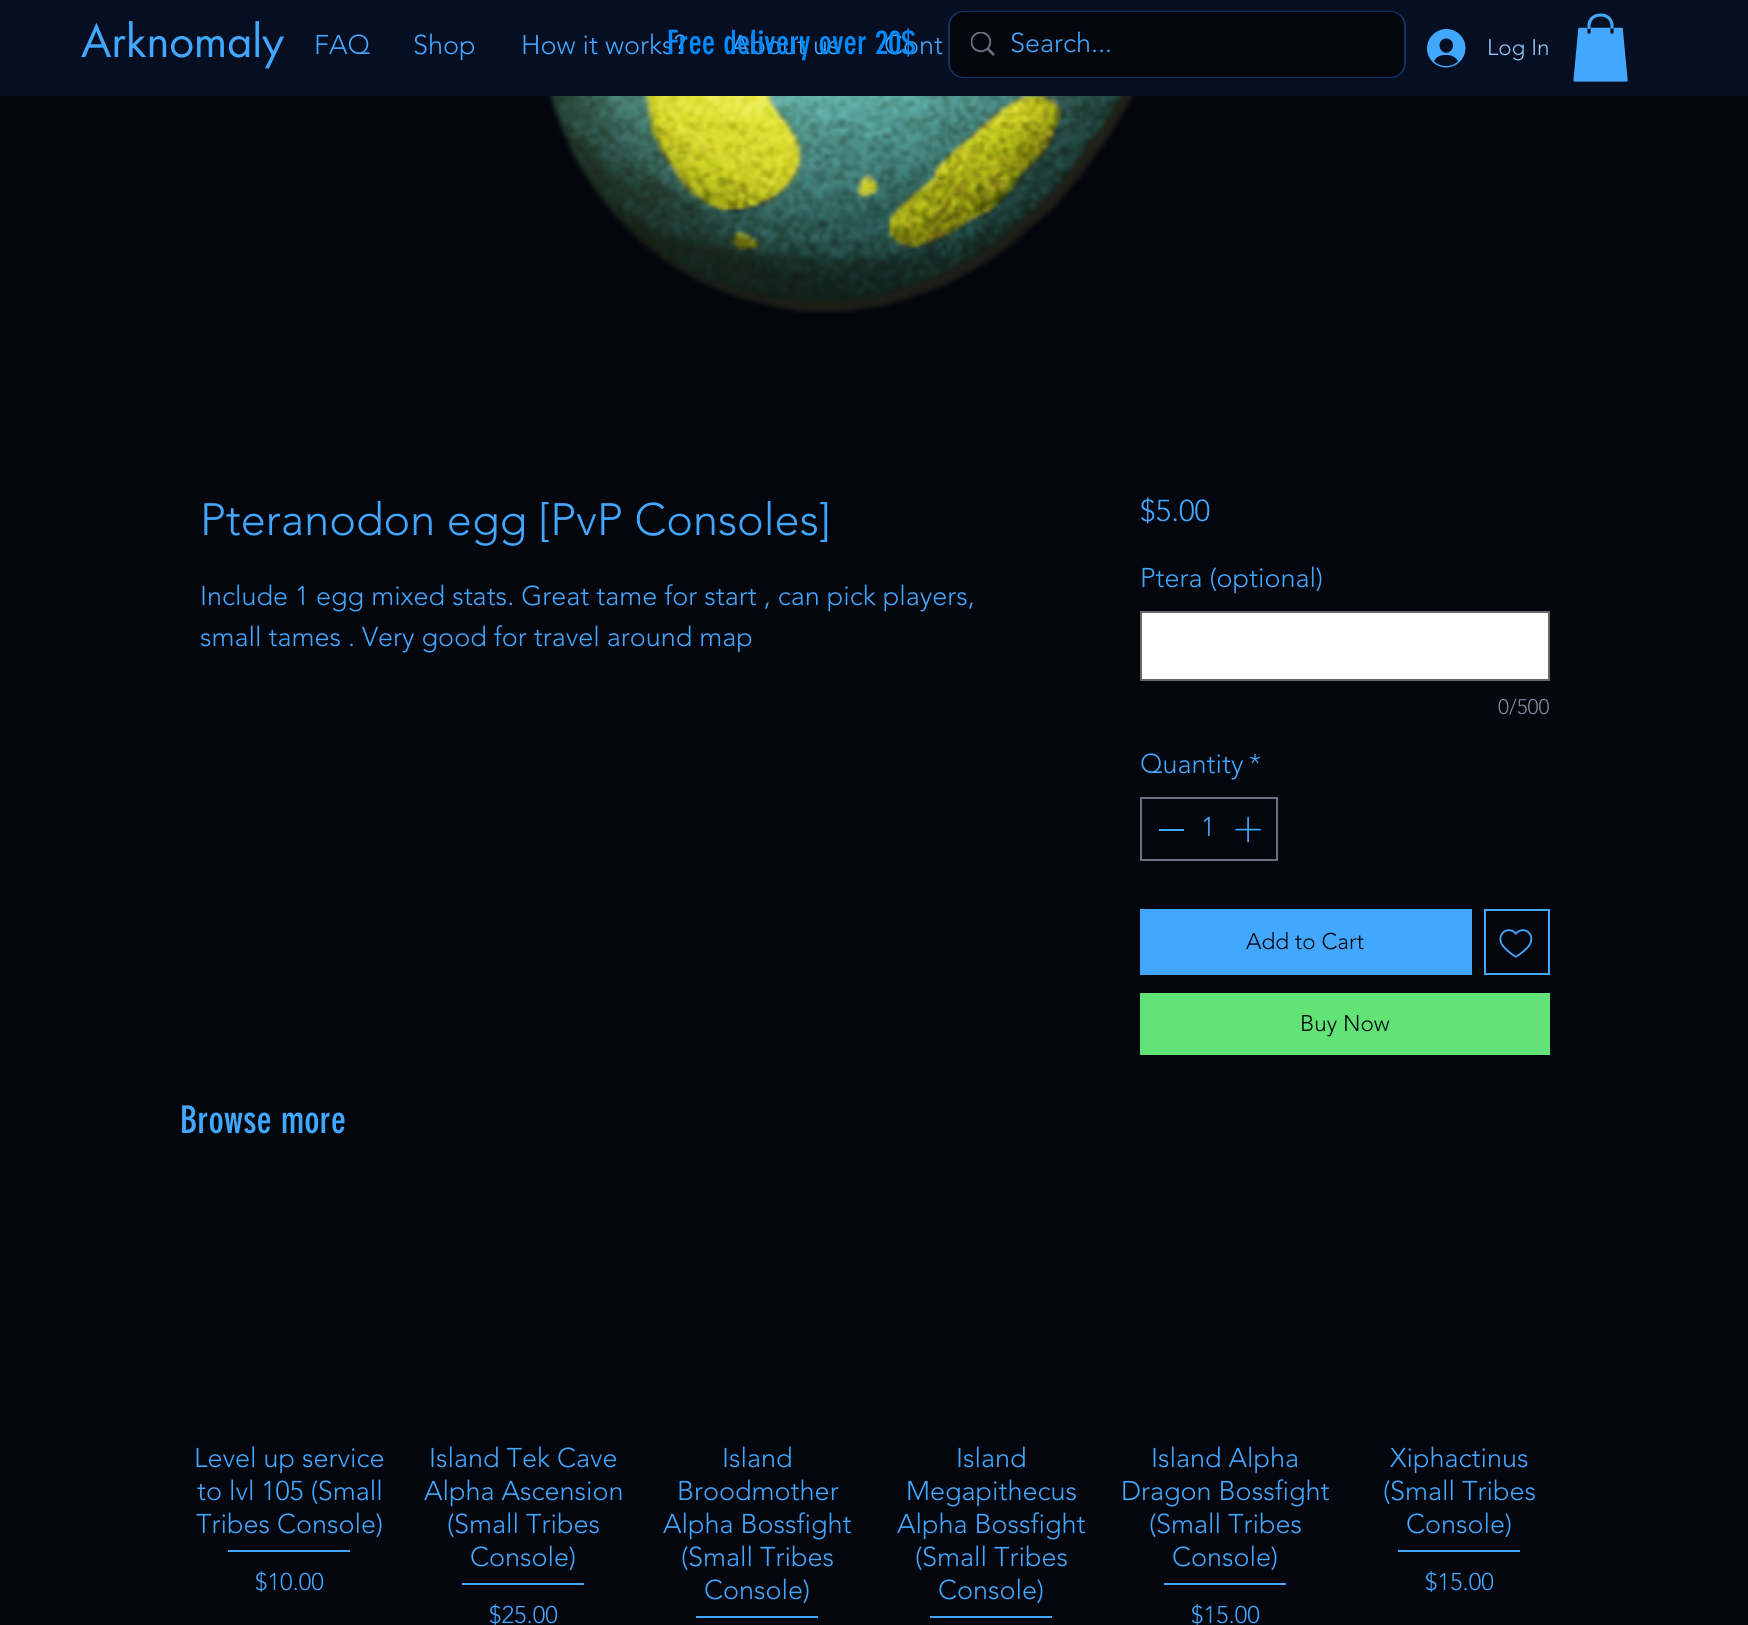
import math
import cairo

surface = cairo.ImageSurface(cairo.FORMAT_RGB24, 1748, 1625)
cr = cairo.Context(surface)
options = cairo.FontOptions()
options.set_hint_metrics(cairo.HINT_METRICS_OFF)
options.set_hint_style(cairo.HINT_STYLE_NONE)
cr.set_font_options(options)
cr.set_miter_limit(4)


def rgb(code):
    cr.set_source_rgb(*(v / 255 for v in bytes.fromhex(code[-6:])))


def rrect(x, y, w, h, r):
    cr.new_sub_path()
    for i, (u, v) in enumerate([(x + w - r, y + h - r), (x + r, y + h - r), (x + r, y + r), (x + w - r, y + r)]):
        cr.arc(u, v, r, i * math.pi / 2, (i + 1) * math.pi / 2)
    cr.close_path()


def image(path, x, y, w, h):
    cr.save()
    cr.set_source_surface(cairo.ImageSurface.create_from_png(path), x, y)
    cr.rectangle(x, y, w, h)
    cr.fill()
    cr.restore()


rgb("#03060d")
cr.paint()
rgb("#060e21")
cr.rectangle(0, 0, 1748, 96)
cr.fill()
rrect(949, 12, 456, 65, 14)
cr.set_source_rgba(0.075, 0.294, 0.545, 0.6)
cr.stroke()
rgb("#03060d")
rrect(950, 12, 454, 65, 14)
cr.fill()
image("img/1.png", 971, 32, 24, 24)
image("img/2.png", 1427, 29, 39, 39)
image("img/3.png", 1573, 13, 55, 69)
image("img/4.png", 546, 96, 592, 218)
rgb("#ffffff")
cr.rectangle(1141, 612, 408, 68)
cr.fill_preserve()
rgb("#666666")
cr.stroke()
cr.rectangle(1141, 798, 136, 62)
rgb("#6a7181")
cr.stroke()
rgb("#42a7ff")
cr.rectangle(1159, 829, 25, 2)
cr.fill()
image("img/5.png", 1235, 816, 26, 27)
cr.rectangle(1140, 909, 332, 66)
cr.fill()
cr.rectangle(1485, 910, 64, 64)
cr.stroke()
image("img/6.png", 1499, 929, 34, 29)
for x, y, w, h, color in [
    (1140, 993, 410, 62, "#62e375"),
    (228, 1550, 122, 2, "#42a7ff"),
    (462, 1583, 122, 2, "#42a7ff"),
    (696, 1616, 122, 2, "#42a7ff"),
    (930, 1616, 122, 2, "#42a7ff"),
    (1164, 1583, 122, 2, "#42a7ff"),
    (1398, 1550, 122, 2, "#42a7ff"),
]:
    rgb(color)
    cr.rectangle(x, y, w, h)
    cr.fill()
cr.select_font_face("futura")
cr.set_font_size(43.5)
cr.move_to(81, 57)
cr.show_text("Arknomaly")
cr.select_font_face("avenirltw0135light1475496 Light")
cr.set_font_size(27)
for x, y, s in [
    (314, 54, "FAQ"),
    (413, 54, "Shop"),
    (521, 54, "How it works?"),
    (731, 54, "About us"),
    (884, 54, "Cont"),
]:
    cr.move_to(x, y)
    cr.show_text(s)
cr.select_font_face("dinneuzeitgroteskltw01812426")
cr.set_font_size(33)
rgb("#008afc")
cr.move_to(667, 54)
cr.show_text("Free delivery over 20$")
cr.select_font_face("avenirltw0135light1475496 Light")
cr.set_font_size(27)
rgb("#42a7ff")
cr.move_to(1010, 52)
cr.show_text("Search...")
cr.set_font_size(22.5)
rgb("#8fc9fc")
cr.move_to(1487, 55)
cr.show_text("Log In")
cr.set_font_size(45)
rgb("#42a7ff")
cr.move_to(200, 535)
cr.show_text("Pteranodon egg [PvP Consoles]")
cr.set_font_size(27)
cr.move_to(200, 605)
cr.show_text("Include 1 egg mixed stats. Great tame for start , can pick players,")
cr.move_to(200, 646)
cr.show_text("small tames . Very good for travel around map")
cr.set_font_size(30)
cr.move_to(1140, 521)
cr.show_text("$5.00")
cr.set_font_size(27)
cr.move_to(1140, 587)
cr.show_text("Ptera (optional)")
cr.set_font_size(21)
rgb("#80899e")
cr.move_to(1498, 714)
cr.show_text("0/500")
cr.set_font_size(27)
rgb("#42a7ff")
for x, y, s in [
    (1140, 773, "Quantity"),
    (1249, 773, "*"),
    (1201, 836, "1"),
]:
    cr.move_to(x, y)
    cr.show_text(s)
cr.set_font_size(22.5)
rgb("#03060d")
cr.move_to(1246, 949)
cr.show_text("Add to Cart")
cr.move_to(1300, 1031)
cr.show_text("Buy Now")
cr.select_font_face("dinneuzeitgroteskltw01812426")
cr.set_font_size(37.5)
rgb("#42a7ff")
cr.move_to(180, 1133)
cr.show_text("Browse more")
cr.select_font_face("avenirltw0135light1475496 Light")
cr.set_font_size(27)
for x, y, s in [
    (194, 1467, "Level up service"),
    (197, 1500, "to lvl 105 (Small"),
    (196, 1533, "Tribes Console)"),
]:
    cr.move_to(x, y)
    cr.show_text(s)
cr.set_font_size(24)
cr.move_to(255, 1590)
cr.show_text("$10.00")
cr.set_font_size(27)
for x, y, s in [
    (429, 1467, "Island Tek Cave"),
    (424, 1500, "Alpha Ascension"),
    (447, 1533, "(Small Tribes"),
    (470, 1566, "Console)"),
]:
    cr.move_to(x, y)
    cr.show_text(s)
cr.set_font_size(24)
cr.move_to(489, 1623)
cr.show_text("$25.00")
cr.set_font_size(27)
for x, y, s in [
    (722, 1467, "Island"),
    (677, 1500, "Broodmother"),
    (663, 1533, "Alpha Bossfight"),
    (681, 1566, "(Small Tribes"),
    (704, 1599, "Console)"),
    (956, 1467, "Island"),
    (906, 1500, "Megapithecus"),
    (897, 1533, "Alpha Bossfight"),
    (915, 1566, "(Small Tribes"),
    (938, 1599, "Console)"),
    (1151, 1467, "Island Alpha"),
    (1121, 1500, "Dragon Bossfight"),
    (1149, 1533, "(Small Tribes"),
    (1172, 1566, "Console)"),
]:
    cr.move_to(x, y)
    cr.show_text(s)
cr.set_font_size(24)
cr.move_to(1191, 1623)
cr.show_text("$15.00")
cr.set_font_size(27)
for x, y, s in [
    (1390, 1467, "Xiphactinus"),
    (1383, 1500, "(Small Tribes"),
    (1406, 1533, "Console)"),
]:
    cr.move_to(x, y)
    cr.show_text(s)
cr.set_font_size(24)
cr.move_to(1425, 1590)
cr.show_text("$15.00")
surface.write_to_png("page.png")
